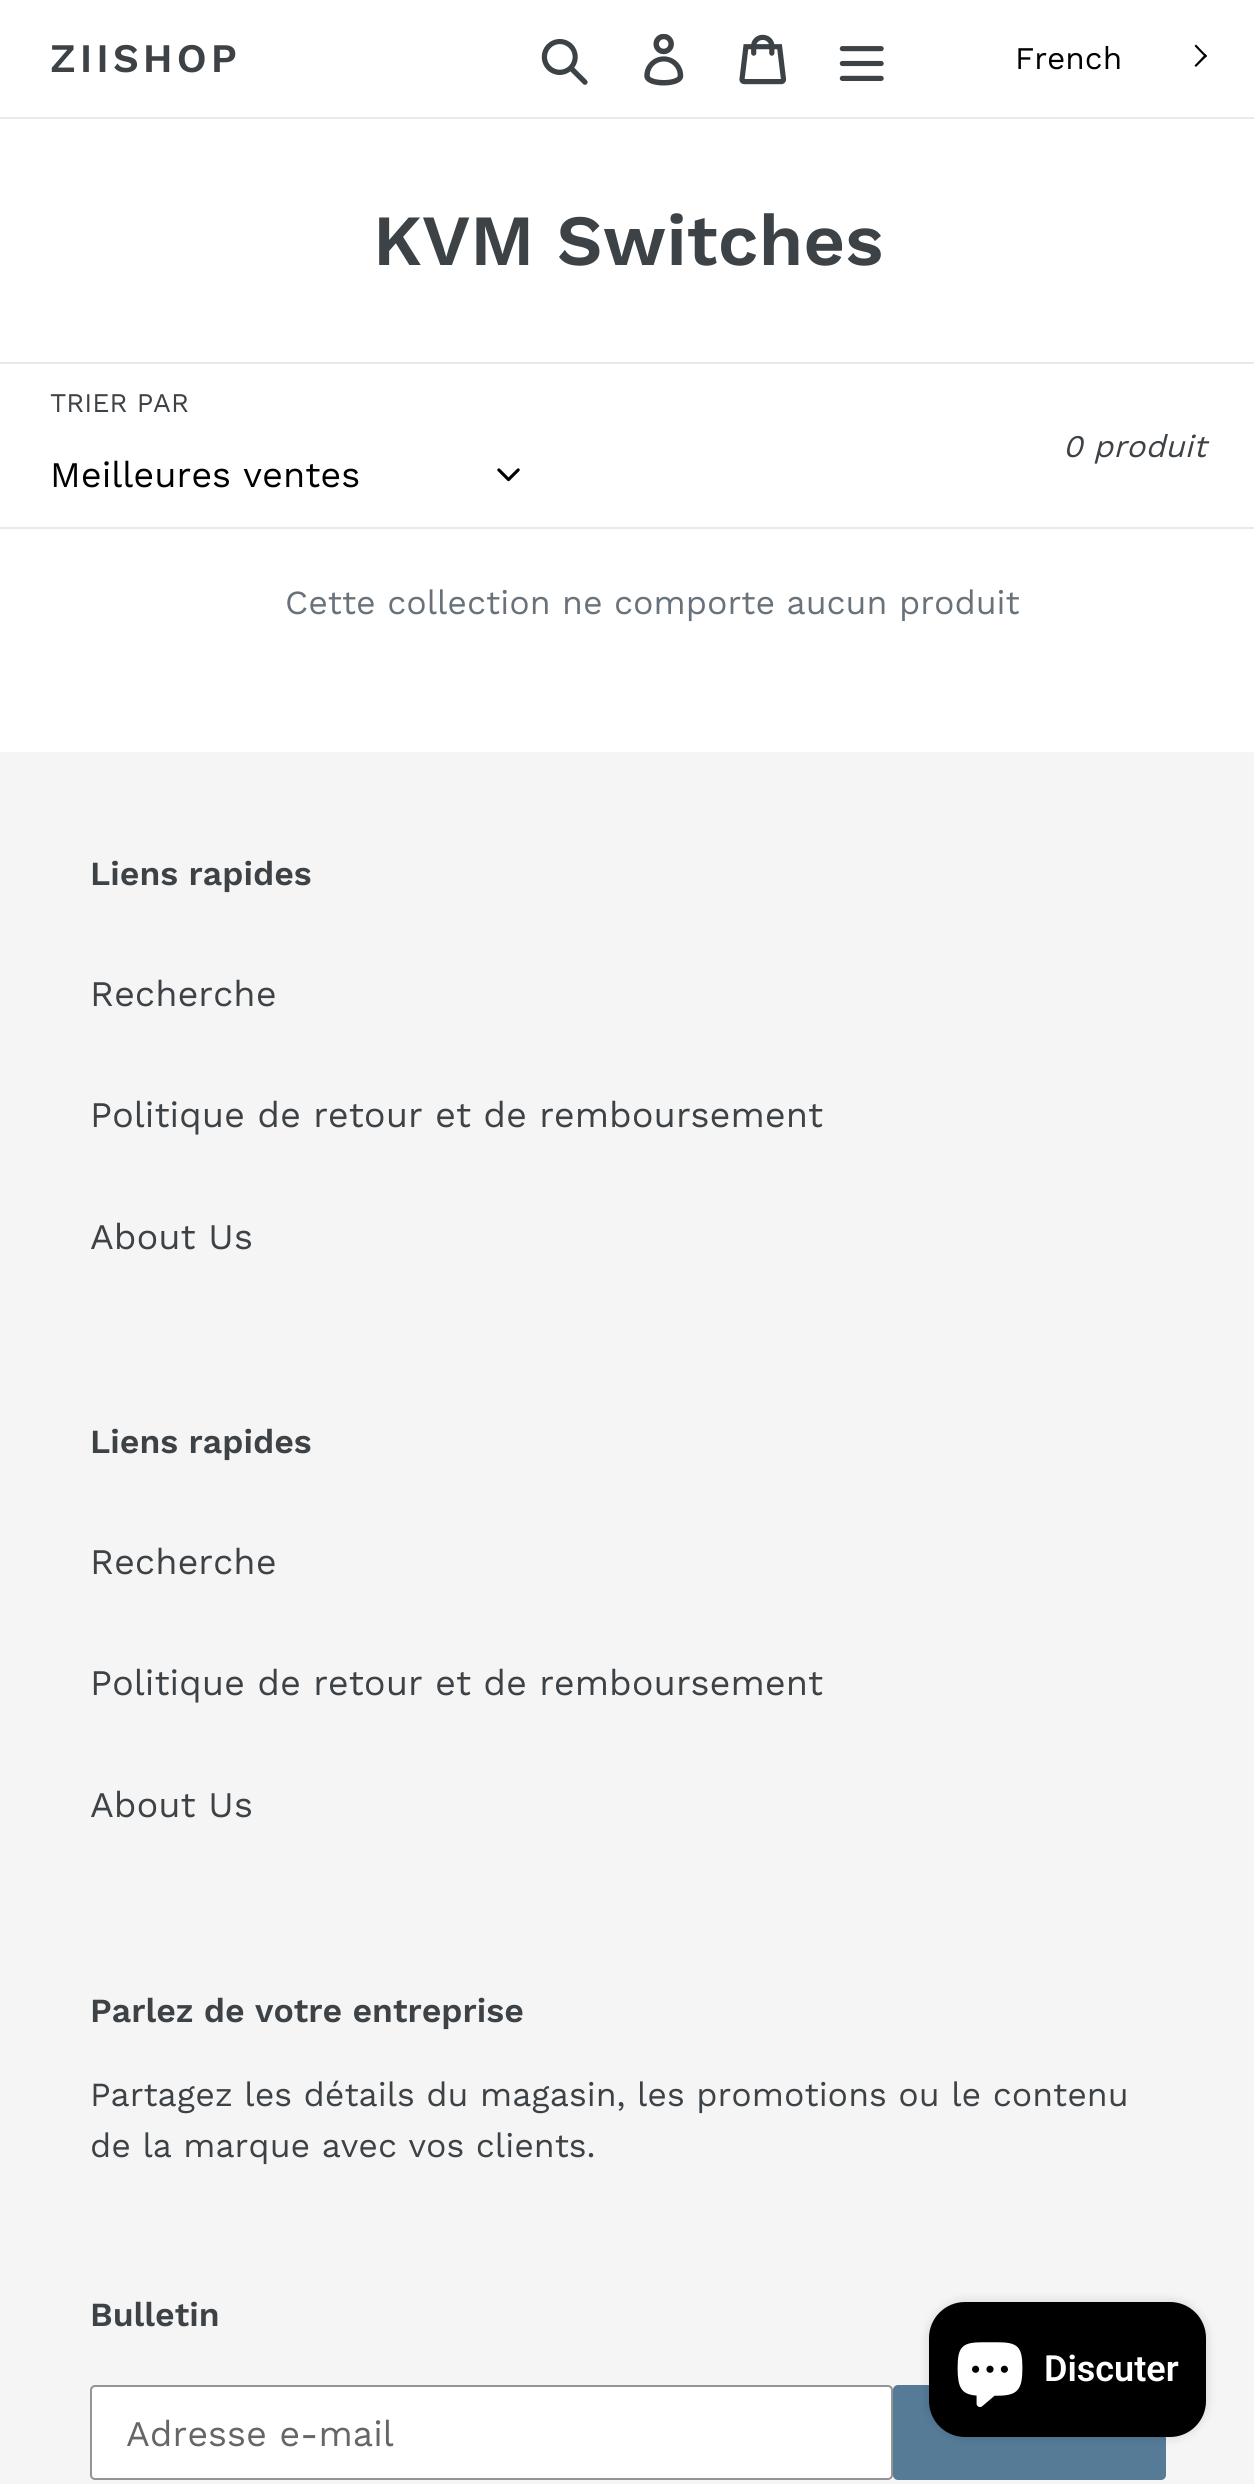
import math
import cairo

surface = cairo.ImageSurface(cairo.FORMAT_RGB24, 1254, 2484)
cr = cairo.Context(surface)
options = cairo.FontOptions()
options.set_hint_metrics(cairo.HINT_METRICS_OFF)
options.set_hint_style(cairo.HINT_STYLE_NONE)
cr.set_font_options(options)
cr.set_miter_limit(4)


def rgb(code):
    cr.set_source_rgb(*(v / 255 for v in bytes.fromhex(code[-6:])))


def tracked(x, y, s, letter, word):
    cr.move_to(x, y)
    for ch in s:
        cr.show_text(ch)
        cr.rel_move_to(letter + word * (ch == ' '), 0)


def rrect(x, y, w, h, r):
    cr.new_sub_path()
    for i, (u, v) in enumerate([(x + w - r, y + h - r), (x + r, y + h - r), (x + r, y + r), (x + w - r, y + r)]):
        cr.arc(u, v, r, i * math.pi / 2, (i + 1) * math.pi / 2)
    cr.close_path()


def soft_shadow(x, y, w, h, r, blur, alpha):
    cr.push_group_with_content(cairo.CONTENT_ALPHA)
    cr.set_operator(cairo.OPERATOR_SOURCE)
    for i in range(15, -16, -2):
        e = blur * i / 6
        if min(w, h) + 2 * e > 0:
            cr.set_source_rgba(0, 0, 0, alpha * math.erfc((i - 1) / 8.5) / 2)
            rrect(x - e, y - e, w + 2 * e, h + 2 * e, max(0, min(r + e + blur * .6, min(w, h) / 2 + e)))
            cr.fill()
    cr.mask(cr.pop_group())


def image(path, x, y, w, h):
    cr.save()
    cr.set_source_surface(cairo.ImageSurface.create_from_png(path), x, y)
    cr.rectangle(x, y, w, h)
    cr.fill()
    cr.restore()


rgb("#ffffff")
cr.paint()
rgb("#e8e9eb")
cr.rectangle(0, 117, 1254, 2)
cr.fill()
image("img/1.png", 541, 39, 47, 46)
image("img/2.png", 644, 34, 40, 52)
image("img/3.png", 739, 34, 48, 51)
image("img/4.png", 839, 46, 45, 35)
rgb("#000000")
cr.new_path()
cr.move_to(1196, 44.5)
cr.line_to(1207, 56)
cr.line_to(1205.5, 57.5)
cr.line_to(1194.5, 46)
cr.close_path()
cr.fill()
cr.new_path()
cr.move_to(1205.5, 54)
cr.line_to(1207, 56)
cr.line_to(1196, 67)
cr.line_to(1194.5, 65.5)
cr.close_path()
cr.fill()
rgb("#e8e9eb")
cr.rectangle(0, 362, 1254, 2)
cr.fill()
cr.rectangle(0, 527, 1254, 2)
cr.fill()
image("img/5.png", 497, 468, 23, 14)
rgb("#f5f5f5")
cr.rectangle(0, 752, 1254, 1732)
cr.fill()
rgb("#ffffff")
rrect(91, 2386, 801, 93, 4)
cr.fill_preserve()
rgb("#949494")
cr.stroke()
rgb("#557b97")
rrect(893, 2385, 273, 95, 5)
cr.fill()
rgb("#000000")
soft_shadow(929, 2302, 277, 135, 36, 5.5, 0.15)
rgb("#000000")
rrect(929, 2302, 277, 135, 36)
cr.fill()
image("img/6.png", 957, 2342, 66, 65)
cr.select_font_face("Work Sans SemiBold")
cr.set_font_size(40.5)
rgb("#3d4246")
tracked(50, 72, "ZIISHOP", 4, 0)
cr.select_font_face("Work Sans")
cr.set_font_size(31.5)
rgb("#000000")
cr.move_to(1015, 69)
cr.show_text("French")
cr.select_font_face("Work Sans SemiBold")
cr.set_font_size(72)
rgb("#3d4246")
cr.move_to(373, 265)
cr.show_text("KVM Switches")
cr.select_font_face("Work Sans")
cr.set_font_size(27)
cr.move_to(50, 412)
cr.show_text("TRIER PAR")
cr.set_font_size(36)
rgb("#000000")
cr.move_to(50, 487)
cr.show_text("Meilleures ventes")
cr.select_font_face("Work Sans", cairo.FONT_SLANT_ITALIC)
cr.set_font_size(31.5)
rgb("#3d4246")
cr.move_to(1063, 457)
cr.show_text("0 produit")
cr.select_font_face("Work Sans")
cr.set_font_size(33.75)
rgb("#69727b")
cr.move_to(285, 614)
cr.show_text("Cette collection ne comporte aucun produit")
cr.select_font_face("Work Sans SemiBold")
rgb("#3d4246")
cr.move_to(90, 885)
cr.show_text("Liens rapides")
cr.select_font_face("Work Sans")
cr.set_font_size(36)
for x, y, s in [
    (90, 1006, "Recherche"),
    (90, 1127, "Politique de retour et de remboursement"),
    (90, 1249, "About Us"),
]:
    cr.move_to(x, y)
    cr.show_text(s)
cr.select_font_face("Work Sans SemiBold")
cr.set_font_size(33.75)
cr.move_to(90, 1453)
cr.show_text("Liens rapides")
cr.select_font_face("Work Sans")
cr.set_font_size(36)
for x, y, s in [
    (90, 1574, "Recherche"),
    (90, 1695, "Politique de retour et de remboursement"),
    (90, 1817, "About Us"),
]:
    cr.move_to(x, y)
    cr.show_text(s)
cr.select_font_face("Work Sans SemiBold")
cr.set_font_size(33.75)
cr.move_to(90, 2022)
cr.show_text("Parlez de votre entreprise")
cr.select_font_face("Work Sans")
cr.move_to(90, 2106)
cr.show_text("Partagez les détails du magasin, les promotions ou le contenu")
cr.move_to(90, 2157)
cr.show_text("de la marque avec vos clients.")
cr.select_font_face("Work Sans SemiBold")
cr.move_to(90, 2326)
cr.show_text("Bulletin")
cr.select_font_face("Work Sans")
cr.set_font_size(36)
rgb("#666666")
cr.move_to(126, 2446)
cr.show_text("Adresse e-mail")
cr.select_font_face("Roboto SemiBold")
rgb("#ffffff")
cr.move_to(1044, 2381)
cr.show_text("Discuter")
surface.write_to_png("page.png")
